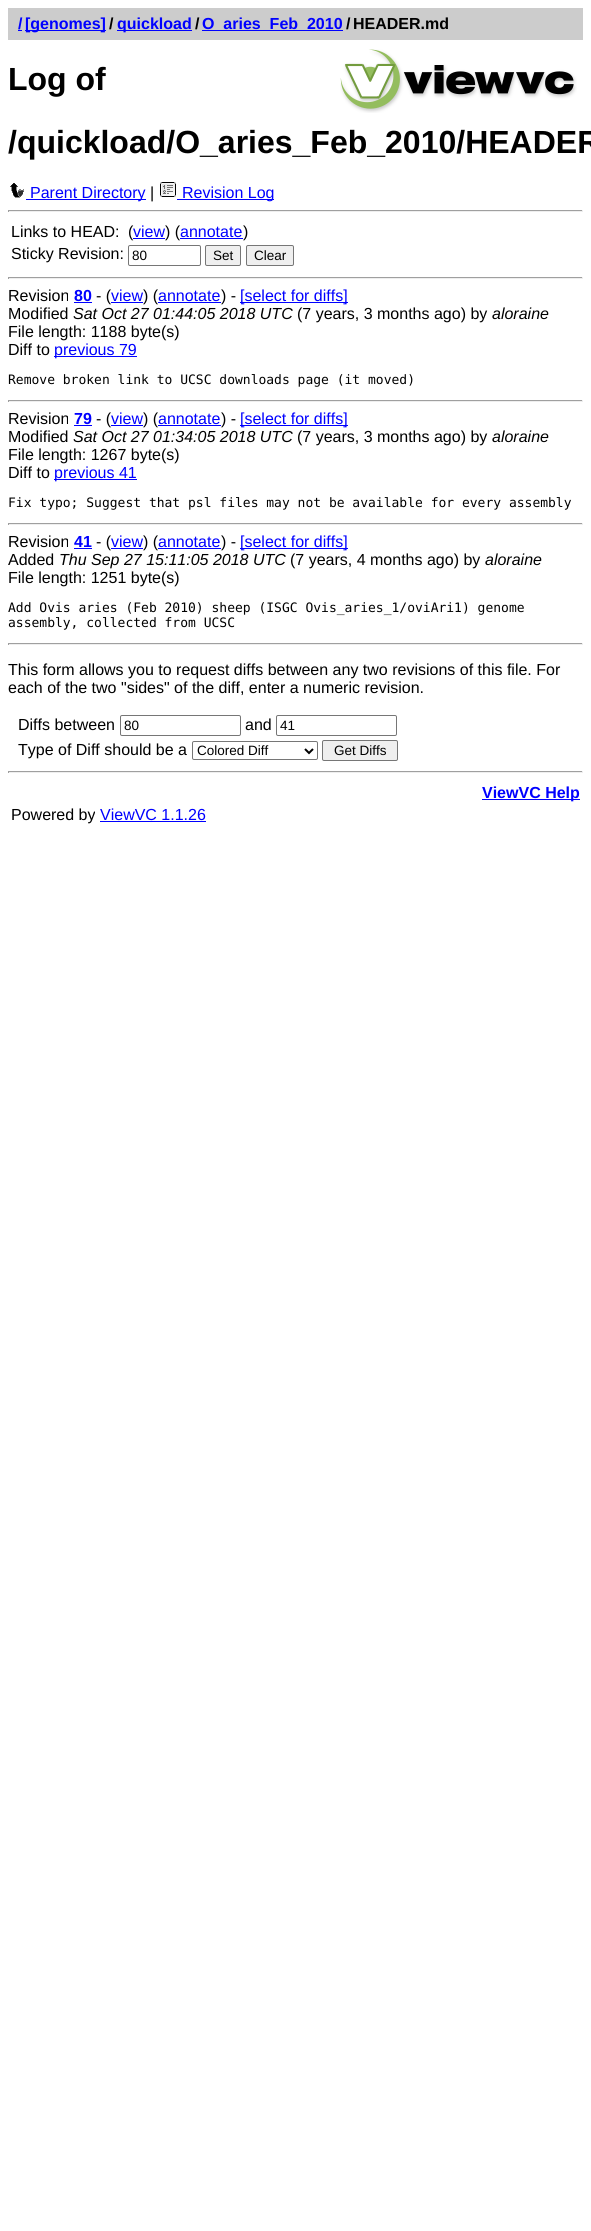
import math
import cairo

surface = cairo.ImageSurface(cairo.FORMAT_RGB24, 591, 2231)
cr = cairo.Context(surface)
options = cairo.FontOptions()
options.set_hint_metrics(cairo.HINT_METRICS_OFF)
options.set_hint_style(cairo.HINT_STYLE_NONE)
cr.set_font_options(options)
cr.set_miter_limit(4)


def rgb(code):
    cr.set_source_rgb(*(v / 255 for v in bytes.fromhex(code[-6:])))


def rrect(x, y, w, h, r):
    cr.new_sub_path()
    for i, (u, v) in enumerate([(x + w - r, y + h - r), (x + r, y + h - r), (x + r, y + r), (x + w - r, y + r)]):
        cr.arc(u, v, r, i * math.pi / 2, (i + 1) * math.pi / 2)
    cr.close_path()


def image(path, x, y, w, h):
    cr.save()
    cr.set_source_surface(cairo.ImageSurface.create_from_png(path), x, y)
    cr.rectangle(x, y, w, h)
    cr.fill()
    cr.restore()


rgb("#ffffff")
cr.paint()
for x, y, w, h, color in [
    (8, 8, 575, 32, "#cccccc"),
    (18, 30, 4, 1, "#0000ff"),
    (25, 30, 81, 1, "#0000ff"),
    (117, 30, 75, 1, "#0000ff"),
    (202, 30, 141, 1, "#0000ff"),
]:
    rgb(color)
    cr.rectangle(x, y, w, h)
    cr.fill()
image("img/1.png", 340, 49, 237, 64)
image("img/2.png", 10, 183, 14, 15)
cr.rectangle(26, 199, 120, 1)
cr.fill()
image("img/3.png", 160, 182, 16, 15)
for x, y, w, h, color in [
    (177, 199, 97, 1, "#0000ff"),
    (8, 210, 575, 1, "#9f9f9f"),
    (582, 210, 1, 2, "#eeeeee"),
    (8, 211, 575, 1, "#eeeeee"),
    (8, 210, 1, 2, "#9f9f9f"),
]:
    rgb(color)
    cr.rectangle(x, y, w, h)
    cr.fill()
rrect(128.5, 245.5, 72, 20, 1.5)
rgb("#767676")
cr.set_line_width(1)
cr.stroke()
rgb("#efefef")
rrect(205.5, 245.5, 35, 20, 1.5)
cr.fill_preserve()
rgb("#767676")
cr.stroke()
rgb("#efefef")
rrect(246.5, 245.5, 47, 20, 1.5)
cr.fill_preserve()
rgb("#767676")
cr.stroke()
for x, y, w, h, color in [
    (8, 277, 575, 1, "#9f9f9f"),
    (582, 277, 1, 2, "#eeeeee"),
    (8, 278, 575, 1, "#eeeeee"),
    (8, 277, 1, 2, "#9f9f9f"),
    (74, 302, 18, 1, "#0000ff"),
    (240, 302, 108, 1, "#0000ff"),
    (54, 356, 83, 1, "#0000ff"),
    (8, 400, 575, 1, "#9f9f9f"),
    (582, 400, 1, 2, "#eeeeee"),
    (8, 401, 575, 1, "#eeeeee"),
    (8, 400, 1, 2, "#9f9f9f"),
    (74, 425, 18, 1, "#0000ff"),
    (240, 425, 108, 1, "#0000ff"),
    (54, 479, 83, 1, "#0000ff"),
    (8, 523, 575, 1, "#9f9f9f"),
    (582, 523, 1, 2, "#eeeeee"),
    (8, 524, 575, 1, "#eeeeee"),
    (8, 523, 1, 2, "#9f9f9f"),
    (74, 548, 18, 1, "#0000ff"),
    (240, 548, 108, 1, "#0000ff"),
    (8, 643, 575, 1, "#9f9f9f"),
    (582, 643, 1, 2, "#eeeeee"),
    (8, 644, 575, 1, "#eeeeee"),
    (8, 643, 1, 2, "#9f9f9f"),
]:
    rgb(color)
    cr.rectangle(x, y, w, h)
    cr.fill()
rrect(120.5, 715.5, 120, 20, 1.5)
rgb("#767676")
cr.stroke()
rrect(276.5, 715.5, 120, 20, 1.5)
cr.stroke()
rrect(192.5, 741.5, 125, 18, 1.5)
cr.stroke()
cr.new_path()
cr.move_to(305, 749)
cr.line_to(309, 753)
cr.line_to(313, 749)
rgb("#000000")
cr.set_line_width(2)
cr.stroke()
rgb("#efefef")
rrect(322.5, 740.5, 75, 20, 1.5)
cr.fill_preserve()
rgb("#767676")
cr.set_line_width(1)
cr.stroke()
for x, y, w, h, color in [
    (8, 771, 575, 1, "#9f9f9f"),
    (582, 771, 1, 2, "#eeeeee"),
    (8, 772, 575, 1, "#eeeeee"),
    (8, 771, 1, 2, "#9f9f9f"),
    (482, 799, 98, 1, "#0000ff"),
    (100, 821, 106, 1, "#0000ff"),
]:
    rgb(color)
    cr.rectangle(x, y, w, h)
    cr.fill()
cr.select_font_face("Liberation Sans", cairo.FONT_SLANT_NORMAL, cairo.FONT_WEIGHT_BOLD)
cr.set_font_size(16)
cr.move_to(18, 29)
cr.show_text("/")
cr.move_to(25, 29)
cr.show_text("[genomes]")
rgb("#000000")
cr.move_to(109, 29)
cr.show_text("/")
rgb("#0000ff")
cr.move_to(117, 29)
cr.show_text("quickload")
rgb("#000000")
cr.move_to(195, 29)
cr.show_text("/")
rgb("#0000ff")
cr.move_to(202, 29)
cr.show_text("O_aries_Feb_2010")
rgb("#000000")
cr.move_to(346, 29)
cr.show_text("/")
cr.move_to(353, 29)
cr.show_text("HEADER.md")
cr.set_font_size(32)
cr.move_to(8, 90)
cr.show_text("Log of")
cr.move_to(8, 153)
cr.show_text("/quickload/O_aries_Feb_2010/HEADER")
cr.select_font_face("Liberation Sans")
cr.set_font_size(16)
rgb("#0000ff")
cr.move_to(30, 198)
cr.show_text("Parent Directory")
rgb("#000000")
cr.move_to(150, 198)
cr.show_text("|")
rgb("#0000ff")
cr.move_to(182, 198)
cr.show_text("Revision Log")
rgb("#000000")
cr.move_to(11, 237)
cr.show_text("Links to HEAD:")
cr.move_to(128, 237)
cr.show_text("(")
rgb("#0000ff")
cr.move_to(133, 237)
cr.show_text("view")
cr.rectangle(133, 238, 32, 1)
cr.fill()
rgb("#000000")
cr.move_to(165, 237)
cr.show_text(") (")
rgb("#0000ff")
cr.move_to(180, 237)
cr.show_text("annotate")
cr.rectangle(180, 238, 63, 1)
cr.fill()
rgb("#000000")
cr.move_to(243, 237)
cr.show_text(")")
cr.move_to(11, 259)
cr.show_text("Sticky Revision:")
cr.set_font_size(13.5)
for x, y, s in [
    (132, 260, "80"),
    (213, 260, "Set"),
    (254, 260, "Clear"),
]:
    cr.move_to(x, y)
    cr.show_text(s)
cr.set_font_size(16)
cr.move_to(8, 301)
cr.show_text("Revision")
cr.select_font_face("Liberation Sans", cairo.FONT_SLANT_NORMAL, cairo.FONT_WEIGHT_BOLD)
rgb("#0000ff")
cr.move_to(74, 301)
cr.show_text("80")
cr.select_font_face("Liberation Sans")
rgb("#000000")
cr.move_to(96, 301)
cr.show_text("- (")
rgb("#0000ff")
cr.move_to(111, 301)
cr.show_text("view")
cr.rectangle(111, 302, 32, 1)
cr.fill()
rgb("#000000")
cr.move_to(143, 301)
cr.show_text(") (")
rgb("#0000ff")
cr.move_to(158, 301)
cr.show_text("annotate")
cr.rectangle(158, 302, 63, 1)
cr.fill()
rgb("#000000")
cr.move_to(221, 301)
cr.show_text(") -")
rgb("#0000ff")
cr.move_to(240, 301)
cr.show_text("[select for diffs]")
rgb("#000000")
cr.move_to(8, 319)
cr.show_text("Modified")
cr.select_font_face("Liberation Sans", cairo.FONT_SLANT_ITALIC)
cr.move_to(73, 319)
cr.show_text("Sat Oct 27 01:44:05 2018 UTC")
cr.select_font_face("Liberation Sans")
cr.move_to(297, 319)
cr.show_text("(7 years, 3 months ago) by")
cr.select_font_face("Liberation Sans", cairo.FONT_SLANT_ITALIC)
cr.move_to(492, 319)
cr.show_text("aloraine")
cr.select_font_face("Liberation Sans")
cr.move_to(8, 337)
cr.show_text("File length: 1188 byte(s)")
cr.move_to(8, 355)
cr.show_text("Diff to")
rgb("#0000ff")
cr.move_to(54, 355)
cr.show_text("previous 79")
cr.select_font_face("DejaVu Sans Mono")
cr.set_font_size(13)
rgb("#000000")
cr.move_to(8, 384)
cr.show_text("Remove broken link to UCSC downloads page (it moved)")
cr.select_font_face("Liberation Sans")
cr.set_font_size(16)
cr.move_to(8, 424)
cr.show_text("Revision")
cr.select_font_face("Liberation Sans", cairo.FONT_SLANT_NORMAL, cairo.FONT_WEIGHT_BOLD)
rgb("#0000ff")
cr.move_to(74, 424)
cr.show_text("79")
cr.select_font_face("Liberation Sans")
rgb("#000000")
cr.move_to(96, 424)
cr.show_text("- (")
rgb("#0000ff")
cr.move_to(111, 424)
cr.show_text("view")
cr.rectangle(111, 425, 32, 1)
cr.fill()
rgb("#000000")
cr.move_to(143, 424)
cr.show_text(") (")
rgb("#0000ff")
cr.move_to(158, 424)
cr.show_text("annotate")
cr.rectangle(158, 425, 63, 1)
cr.fill()
rgb("#000000")
cr.move_to(221, 424)
cr.show_text(") -")
rgb("#0000ff")
cr.move_to(240, 424)
cr.show_text("[select for diffs]")
rgb("#000000")
cr.move_to(8, 442)
cr.show_text("Modified")
cr.select_font_face("Liberation Sans", cairo.FONT_SLANT_ITALIC)
cr.move_to(73, 442)
cr.show_text("Sat Oct 27 01:34:05 2018 UTC")
cr.select_font_face("Liberation Sans")
cr.move_to(297, 442)
cr.show_text("(7 years, 3 months ago) by")
cr.select_font_face("Liberation Sans", cairo.FONT_SLANT_ITALIC)
cr.move_to(492, 442)
cr.show_text("aloraine")
cr.select_font_face("Liberation Sans")
cr.move_to(8, 460)
cr.show_text("File length: 1267 byte(s)")
cr.move_to(8, 478)
cr.show_text("Diff to")
rgb("#0000ff")
cr.move_to(54, 478)
cr.show_text("previous 41")
cr.select_font_face("DejaVu Sans Mono")
cr.set_font_size(13)
rgb("#000000")
cr.move_to(8, 507)
cr.show_text("Fix typo; Suggest that psl files may not be available for every assembly")
cr.select_font_face("Liberation Sans")
cr.set_font_size(16)
cr.move_to(8, 547)
cr.show_text("Revision")
cr.select_font_face("Liberation Sans", cairo.FONT_SLANT_NORMAL, cairo.FONT_WEIGHT_BOLD)
rgb("#0000ff")
cr.move_to(74, 547)
cr.show_text("41")
cr.select_font_face("Liberation Sans")
rgb("#000000")
cr.move_to(96, 547)
cr.show_text("- (")
rgb("#0000ff")
cr.move_to(111, 547)
cr.show_text("view")
cr.rectangle(111, 548, 32, 1)
cr.fill()
rgb("#000000")
cr.move_to(143, 547)
cr.show_text(") (")
rgb("#0000ff")
cr.move_to(158, 547)
cr.show_text("annotate")
cr.rectangle(158, 548, 63, 1)
cr.fill()
rgb("#000000")
cr.move_to(221, 547)
cr.show_text(") -")
rgb("#0000ff")
cr.move_to(240, 547)
cr.show_text("[select for diffs]")
rgb("#000000")
cr.move_to(8, 565)
cr.show_text("Added")
cr.select_font_face("Liberation Sans", cairo.FONT_SLANT_ITALIC)
cr.move_to(59, 565)
cr.show_text("Thu Sep 27 15:11:05 2018 UTC")
cr.select_font_face("Liberation Sans")
cr.move_to(290, 565)
cr.show_text("(7 years, 4 months ago) by")
cr.select_font_face("Liberation Sans", cairo.FONT_SLANT_ITALIC)
cr.move_to(485, 565)
cr.show_text("aloraine")
cr.select_font_face("Liberation Sans")
cr.move_to(8, 583)
cr.show_text("File length: 1251 byte(s)")
cr.select_font_face("DejaVu Sans Mono")
cr.set_font_size(13)
cr.move_to(8, 612)
cr.show_text("Add Ovis aries (Feb 2010) sheep (ISGC Ovis_aries_1/oviAri1) genome")
cr.move_to(8, 627)
cr.show_text("assembly, collected from UCSC")
cr.select_font_face("Liberation Sans")
cr.set_font_size(16)
for x, y, s in [
    (8, 675, "This form allows you to request diffs between any two revisions of this file. For"),
    (8, 693, "each of the two \"sides\" of the diff, enter a numeric revision."),
    (18, 730, "Diffs between"),
]:
    cr.move_to(x, y)
    cr.show_text(s)
cr.set_font_size(13.5)
cr.move_to(124, 730)
cr.show_text("80")
cr.set_font_size(16)
cr.move_to(245, 730)
cr.show_text("and")
cr.set_font_size(13.5)
cr.move_to(280, 730)
cr.show_text("41")
cr.set_font_size(16)
cr.move_to(18, 755)
cr.show_text("Type of Diff should be a")
cr.set_font_size(13.5)
cr.move_to(197, 755)
cr.show_text("Colored Diff")
cr.move_to(334, 755)
cr.show_text("Get Diffs")
cr.select_font_face("Liberation Sans", cairo.FONT_SLANT_NORMAL, cairo.FONT_WEIGHT_BOLD)
cr.set_font_size(16)
rgb("#0000ff")
cr.move_to(482, 798)
cr.show_text("ViewVC Help")
cr.select_font_face("Liberation Sans")
rgb("#000000")
cr.move_to(11, 820)
cr.show_text("Powered by")
rgb("#0000ff")
cr.move_to(100, 820)
cr.show_text("ViewVC 1.1.26")
surface.write_to_png("page.png")
